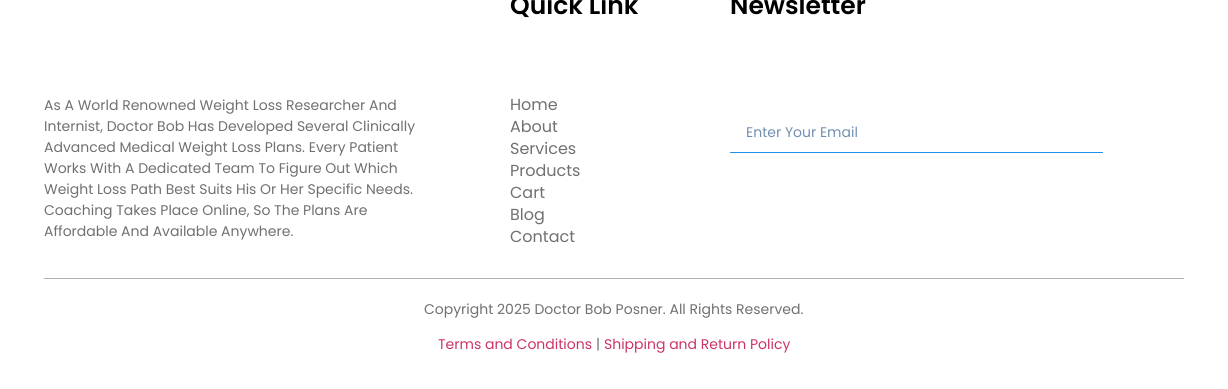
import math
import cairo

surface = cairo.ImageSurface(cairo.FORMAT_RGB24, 1228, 389)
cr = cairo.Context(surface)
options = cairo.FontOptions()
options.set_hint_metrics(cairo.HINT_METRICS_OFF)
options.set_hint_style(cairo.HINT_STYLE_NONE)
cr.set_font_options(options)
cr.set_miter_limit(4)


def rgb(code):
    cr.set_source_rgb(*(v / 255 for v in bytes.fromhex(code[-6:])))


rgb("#ffffff")
cr.paint()
rgb("#2490eb")
cr.rectangle(730, 152, 373, 1)
cr.fill()
rgb("#afafaf")
cr.rectangle(44, 278, 1140, 1)
cr.fill()
cr.select_font_face("Poppins SemiBold")
cr.set_font_size(25)
rgb("#000000")
cr.move_to(510, 14)
cr.show_text("Quick Link")
cr.select_font_face("Poppins")
cr.set_font_size(16)
rgb("#707070")
for x, y, s in [
    (510, 110, "Home"),
    (510, 132, "About"),
    (510, 154, "Services"),
    (510, 176, "Products"),
    (510, 198, "Cart"),
    (510, 220, "Blog"),
    (510, 242, "Contact"),
]:
    cr.move_to(x, y)
    cr.show_text(s)
cr.select_font_face("Poppins SemiBold")
cr.set_font_size(25)
rgb("#000000")
cr.move_to(730, 14)
cr.show_text("Newsletter")
cr.select_font_face("Poppins")
cr.set_font_size(14)
rgb("#728fb0")
cr.move_to(746, 137)
cr.show_text("Enter Your Email")
rgb("#707070")
for x, y, s in [
    (44, 110, "As A World Renowned Weight Loss Researcher And"),
    (44, 131, "Internist, Doctor Bob Has Developed Several Clinically"),
    (44, 152, "Advanced Medical Weight Loss Plans. Every Patient"),
    (44, 173, "Works With A Dedicated Team To Figure Out Which"),
    (44, 194, "Weight Loss Path Best Suits His Or Her Specific Needs."),
    (44, 215, "Coaching Takes Place Online, So The Plans Are"),
    (44, 236, "Affordable And Available Anywhere."),
    (424, 314, "Copyright 2025 Doctor Bob Posner. All Rights Reserved."),
]:
    cr.move_to(x, y)
    cr.show_text(s)
rgb("#cc3366")
cr.move_to(438, 349)
cr.show_text("Terms and Conditions")
rgb("#707070")
cr.move_to(596, 349)
cr.show_text("|")
rgb("#cc3366")
cr.move_to(604, 349)
cr.show_text("Shipping and Return Policy")
surface.write_to_png("page.png")
